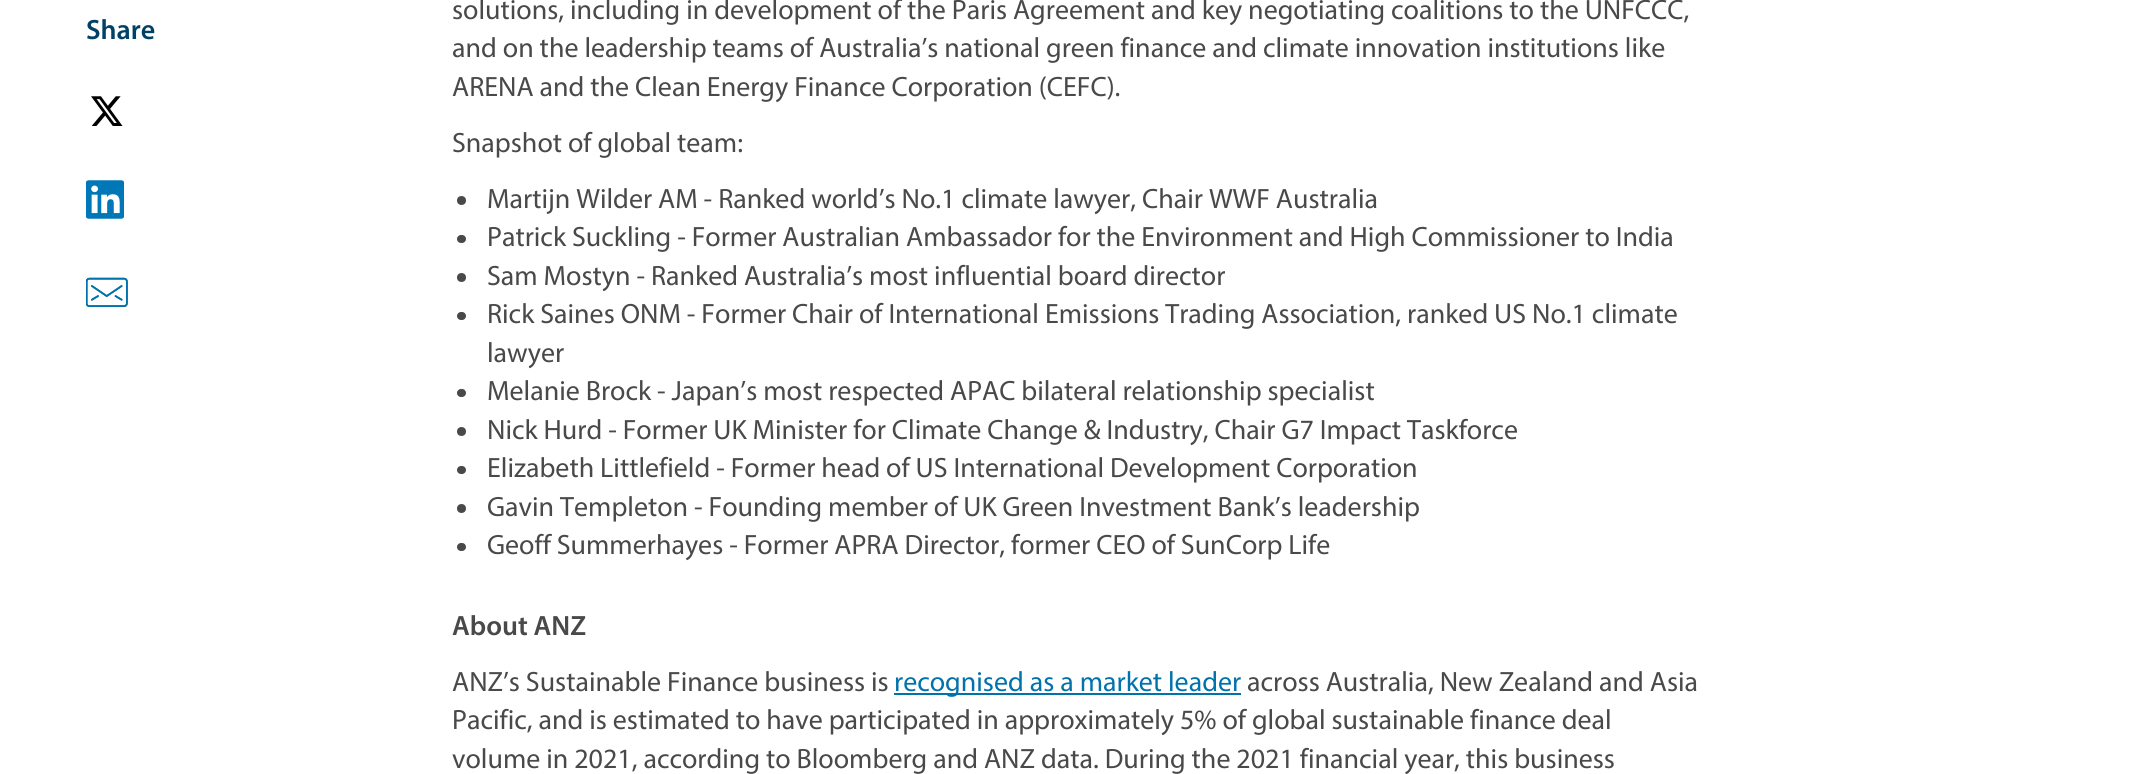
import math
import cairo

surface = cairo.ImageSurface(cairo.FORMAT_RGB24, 2156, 774)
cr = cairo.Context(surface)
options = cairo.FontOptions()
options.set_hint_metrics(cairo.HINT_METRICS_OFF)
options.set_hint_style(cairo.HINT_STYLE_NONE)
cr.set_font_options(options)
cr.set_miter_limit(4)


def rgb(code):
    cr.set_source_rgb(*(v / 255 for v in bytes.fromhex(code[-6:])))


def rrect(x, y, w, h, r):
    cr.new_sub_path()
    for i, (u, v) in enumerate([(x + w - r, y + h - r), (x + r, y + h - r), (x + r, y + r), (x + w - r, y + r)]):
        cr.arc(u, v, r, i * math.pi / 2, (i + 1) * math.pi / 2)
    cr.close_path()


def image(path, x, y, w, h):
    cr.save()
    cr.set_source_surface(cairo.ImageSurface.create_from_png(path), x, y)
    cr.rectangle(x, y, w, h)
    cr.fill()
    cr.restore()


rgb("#ffffff")
cr.paint()
image("img/1.png", 91, 96, 32, 30)
image("img/2.png", 86, 180, 38, 39)
image("img/3.png", 86, 277, 42, 30)
rgb("#494949")
cr.arc(461.5, 200.5, 4.5, 0, 2 * math.pi)
cr.fill()
rrect(457, 235, 9, 8, 4)
cr.fill()
cr.arc(461.5, 277.5, 4.5, 0, 2 * math.pi)
cr.fill()
rrect(457, 312, 9, 8, 4)
cr.fill()
rrect(457, 389, 9, 8, 4)
cr.fill()
cr.arc(461.5, 431.5, 4.5, 0, 2 * math.pi)
cr.fill()
rrect(457, 466, 9, 8, 4)
cr.fill()
cr.arc(461.5, 508.5, 4.5, 0, 2 * math.pi)
cr.fill()
rrect(457, 543, 9, 8, 4)
cr.fill()
rgb("#0072ac")
cr.rectangle(894, 693, 347, 2)
cr.fill()
cr.select_font_face("Myriad SemiBold")
cr.set_font_size(28)
rgb("#004165")
cr.move_to(86, 39)
cr.show_text("Share")
cr.select_font_face("Myriad")
rgb("#494949")
for x, y, s in [
    (452, 19, "solutions, including in development of the Paris Agreement and key negotiating coalitions to the UNFCCC,"),
    (452, 57, "and on the leadership teams of Australia’s national green finance and climate innovation institutions like"),
    (452, 96, "ARENA and the Clean Energy Finance Corporation (CEFC)."),
    (452, 152, "Snapshot of global team:"),
    (487, 208, "Martijn Wilder AM - Ranked world’s No.1 climate lawyer, Chair WWF Australia"),
    (487, 246, "Patrick Suckling - Former Australian Ambassador for the Environment and High Commissioner to India"),
    (487, 285, "Sam Mostyn - Ranked Australia’s most influential board director"),
    (487, 323, "Rick Saines ONM - Former Chair of International Emissions Trading Association, ranked US No.1 climate"),
    (487, 362, "lawyer"),
    (487, 400, "Melanie Brock - Japan’s most respected APAC bilateral relationship specialist"),
    (487, 439, "Nick Hurd - Former UK Minister for Climate Change & Industry, Chair G7 Impact Taskforce"),
    (487, 477, "Elizabeth Littlefield - Former head of US International Development Corporation"),
    (487, 516, "Gavin Templeton - Founding member of UK Green Investment Bank’s leadership"),
    (487, 554, "Geoff Summerhayes - Former APRA Director, former CEO of SunCorp Life"),
]:
    cr.move_to(x, y)
    cr.show_text(s)
cr.select_font_face("Myriad SemiBold")
cr.move_to(452, 635)
cr.show_text("About ANZ")
cr.select_font_face("Myriad")
cr.move_to(452, 691)
cr.show_text("ANZ’s Sustainable Finance business is")
rgb("#0072ac")
cr.move_to(894, 691)
cr.show_text("recognised as a market leader")
rgb("#494949")
for x, y, s in [
    (1247, 691, "across Australia, New Zealand and Asia"),
    (452, 729, "Pacific, and is estimated to have participated in approximately 5% of global sustainable finance deal"),
    (452, 768, "volume in 2021, according to Bloomberg and ANZ data. During the 2021 financial year, this business"),
]:
    cr.move_to(x, y)
    cr.show_text(s)
surface.write_to_png("page.png")
